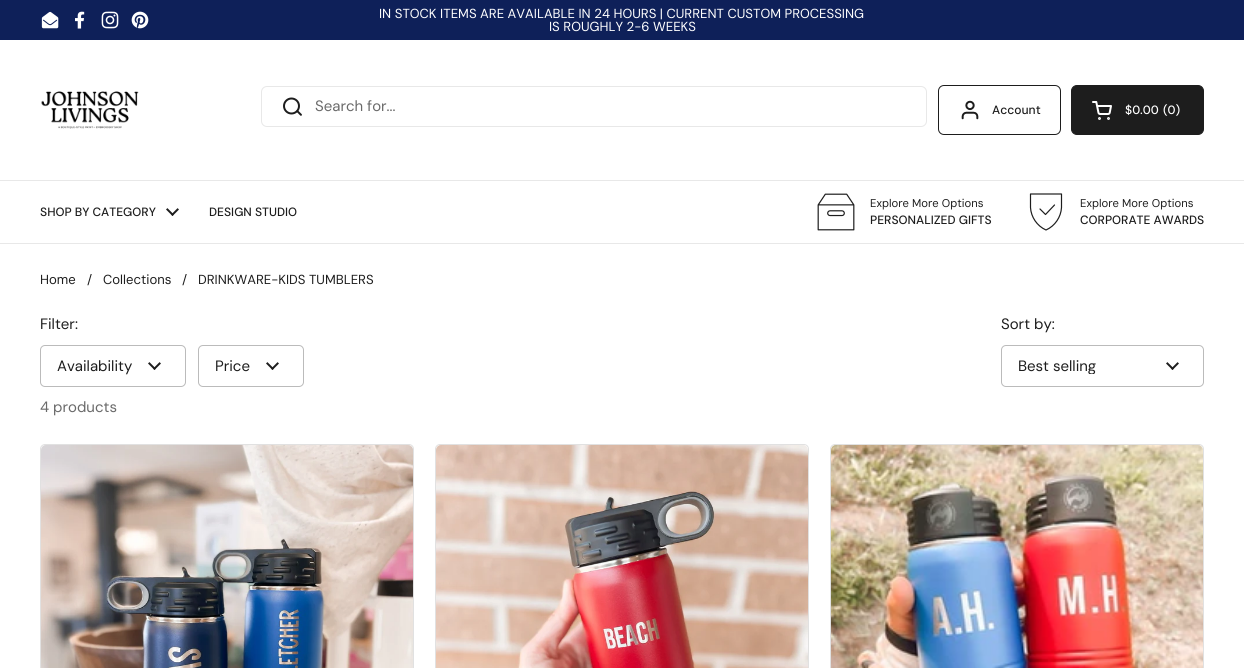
import math
import cairo

surface = cairo.ImageSurface(cairo.FORMAT_RGB24, 1244, 668)
cr = cairo.Context(surface)
options = cairo.FontOptions()
options.set_hint_metrics(cairo.HINT_METRICS_OFF)
options.set_hint_style(cairo.HINT_STYLE_NONE)
cr.set_font_options(options)
cr.set_miter_limit(4)


def rgb(code):
    cr.set_source_rgb(*(v / 255 for v in bytes.fromhex(code[-6:])))


def rrect(x, y, w, h, r):
    cr.new_sub_path()
    for i, (u, v) in enumerate([(x + w - r, y + h - r), (x + r, y + h - r), (x + r, y + r), (x + w - r, y + r)]):
        cr.arc(u, v, r, i * math.pi / 2, (i + 1) * math.pi / 2)
    cr.close_path()


def image(path, x, y, w, h):
    cr.save()
    cr.set_source_surface(cairo.ImageSurface.create_from_png(path), x, y)
    cr.rectangle(x, y, w, h)
    cr.fill()
    cr.restore()


rgb("#ffffff")
cr.paint()
rgb("#0e2059")
cr.rectangle(0, 0, 1244, 40)
cr.fill()
image("img/1.png", 41, 11, 18, 18)
image("img/2.png", 75, 11, 10, 18)
image("img/3.png", 101, 11, 18, 18)
image("img/4.png", 131, 11, 18, 18)
rgb("#e8e8e8")
cr.rectangle(0, 180, 1244, 1)
cr.fill()
image("img/5.png", 41, 91, 98, 38)
rrect(261.5, 86.5, 665, 40, 5.5)
cr.set_line_width(1)
cr.stroke()
image("img/6.png", 283, 97, 19, 19)
rrect(938.5, 85.5, 122, 49, 5.5)
rgb("#1d1d1d")
cr.stroke()
image("img/7.png", 961, 100, 18, 20)
rrect(1071.5, 85.5, 132, 49, 5.5)
cr.fill_preserve()
cr.stroke()
image("img/8.png", 1092, 101, 20, 19)
rgb("#e8e8e8")
cr.rectangle(0, 243, 1244, 1)
cr.fill()
image("img/9.png", 166, 208, 13, 8)
image("img/10.png", 817, 193, 38, 38)
cr.new_path()
cr.move_to(1030.5, 194)
cr.line_to(1061.5, 194)
cr.line_to(1061.5, 207.5)
cr.curve_to(1061, 217, 1055, 226, 1046, 230)
cr.curve_to(1037, 226, 1031, 217, 1030.5, 207.5)
cr.close_path()
cr.move_to(1040, 209)
cr.line_to(1045.5, 214.5)
cr.line_to(1054.5, 205)
rgb("#1d1d1d")
cr.set_line_width(1.2)
cr.set_line_cap(cairo.LINE_CAP_ROUND)
cr.set_line_join(cairo.LINE_JOIN_ROUND)
cr.stroke()
image("img/9.png", 148, 362, 13, 8)
rrect(40.5, 345.5, 145, 41, 4.5)
rgb("#bbbbbb")
cr.set_line_width(1)
cr.set_line_cap(cairo.LINE_CAP_BUTT)
cr.set_line_join(cairo.LINE_JOIN_MITER)
cr.stroke()
image("img/9.png", 266, 362, 13, 8)
rrect(198.5, 345.5, 105, 41, 4.5)
cr.stroke()
image("img/9.png", 1166, 362, 13, 8)
rrect(1001.5, 345.5, 202, 41, 4.5)
cr.stroke()
rrect(40.5, 444.5, 373, 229, 4.5)
rgb("#e1e1e1")
cr.stroke()
image("img/11.png", 41, 445, 372, 223)
rrect(435.5, 444.5, 373, 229, 4.5)
cr.stroke()
image("img/12.png", 436, 445, 372, 223)
rrect(830.5, 444.5, 373, 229, 4.5)
cr.stroke()
image("img/13.png", 831, 445, 372, 223)
cr.select_font_face("DM Sans")
cr.set_font_size(13.1)
rgb("#ffffff")
cr.move_to(379, 18)
cr.show_text("IN STOCK ITEMS ARE AVAILABLE IN 24 HOURS | CURRENT CUSTOM PROCESSING")
cr.move_to(549, 31)
cr.show_text("IS ROUGHLY 2-6 WEEKS")
cr.select_font_face("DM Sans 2")
cr.set_font_size(15)
rgb("#6a6a6a")
cr.move_to(315, 111)
cr.show_text("Search for...")
cr.select_font_face("DM Sans Medium")
cr.set_font_size(12)
rgb("#1d1d1d")
cr.move_to(992, 114)
cr.show_text("Account")
rgb("#ffffff")
cr.move_to(1125, 114)
cr.show_text("$0.00")
cr.move_to(1163, 114)
cr.show_text("(0)")
rgb("#1d1d1d")
cr.move_to(40, 216)
cr.show_text("SHOP BY CATEGORY")
cr.move_to(209, 216)
cr.show_text("DESIGN STUDIO")
cr.select_font_face("DM Sans")
cr.set_font_size(11.25)
cr.move_to(870, 207)
cr.show_text("Explore More Options")
cr.select_font_face("DM Sans Medium")
cr.set_font_size(12)
cr.move_to(870, 224)
cr.show_text("PERSONALIZED GIFTS")
cr.select_font_face("DM Sans")
cr.set_font_size(11.25)
cr.move_to(1080, 207)
cr.show_text("Explore More Options")
cr.select_font_face("DM Sans Medium")
cr.set_font_size(12)
cr.move_to(1080, 224)
cr.show_text("CORPORATE AWARDS")
cr.select_font_face("DM Sans")
cr.set_font_size(13.1)
for x, y, s in [
    (40, 284, "Home"),
    (87, 284, "/"),
    (103, 284, "Collections"),
    (182, 284, "/"),
    (198, 284, "DRINKWARE-KIDS TUMBLERS"),
]:
    cr.move_to(x, y)
    cr.show_text(s)
cr.select_font_face("DM Sans 2")
cr.set_font_size(15)
for x, y, s in [
    (40, 329, "Filter:"),
    (57, 371, "Availability"),
    (215, 371, "Price"),
    (1001, 329, "Sort by:"),
]:
    cr.move_to(x, y)
    cr.show_text(s)
cr.save()
cr.rectangle(1018, 358, 132, 16)
cr.clip()
cr.move_to(1018, 371)
cr.show_text("Best selling")
cr.restore()
rgb("#6a6a6a")
cr.move_to(40, 412)
cr.show_text("4 products")
surface.write_to_png("page.png")
